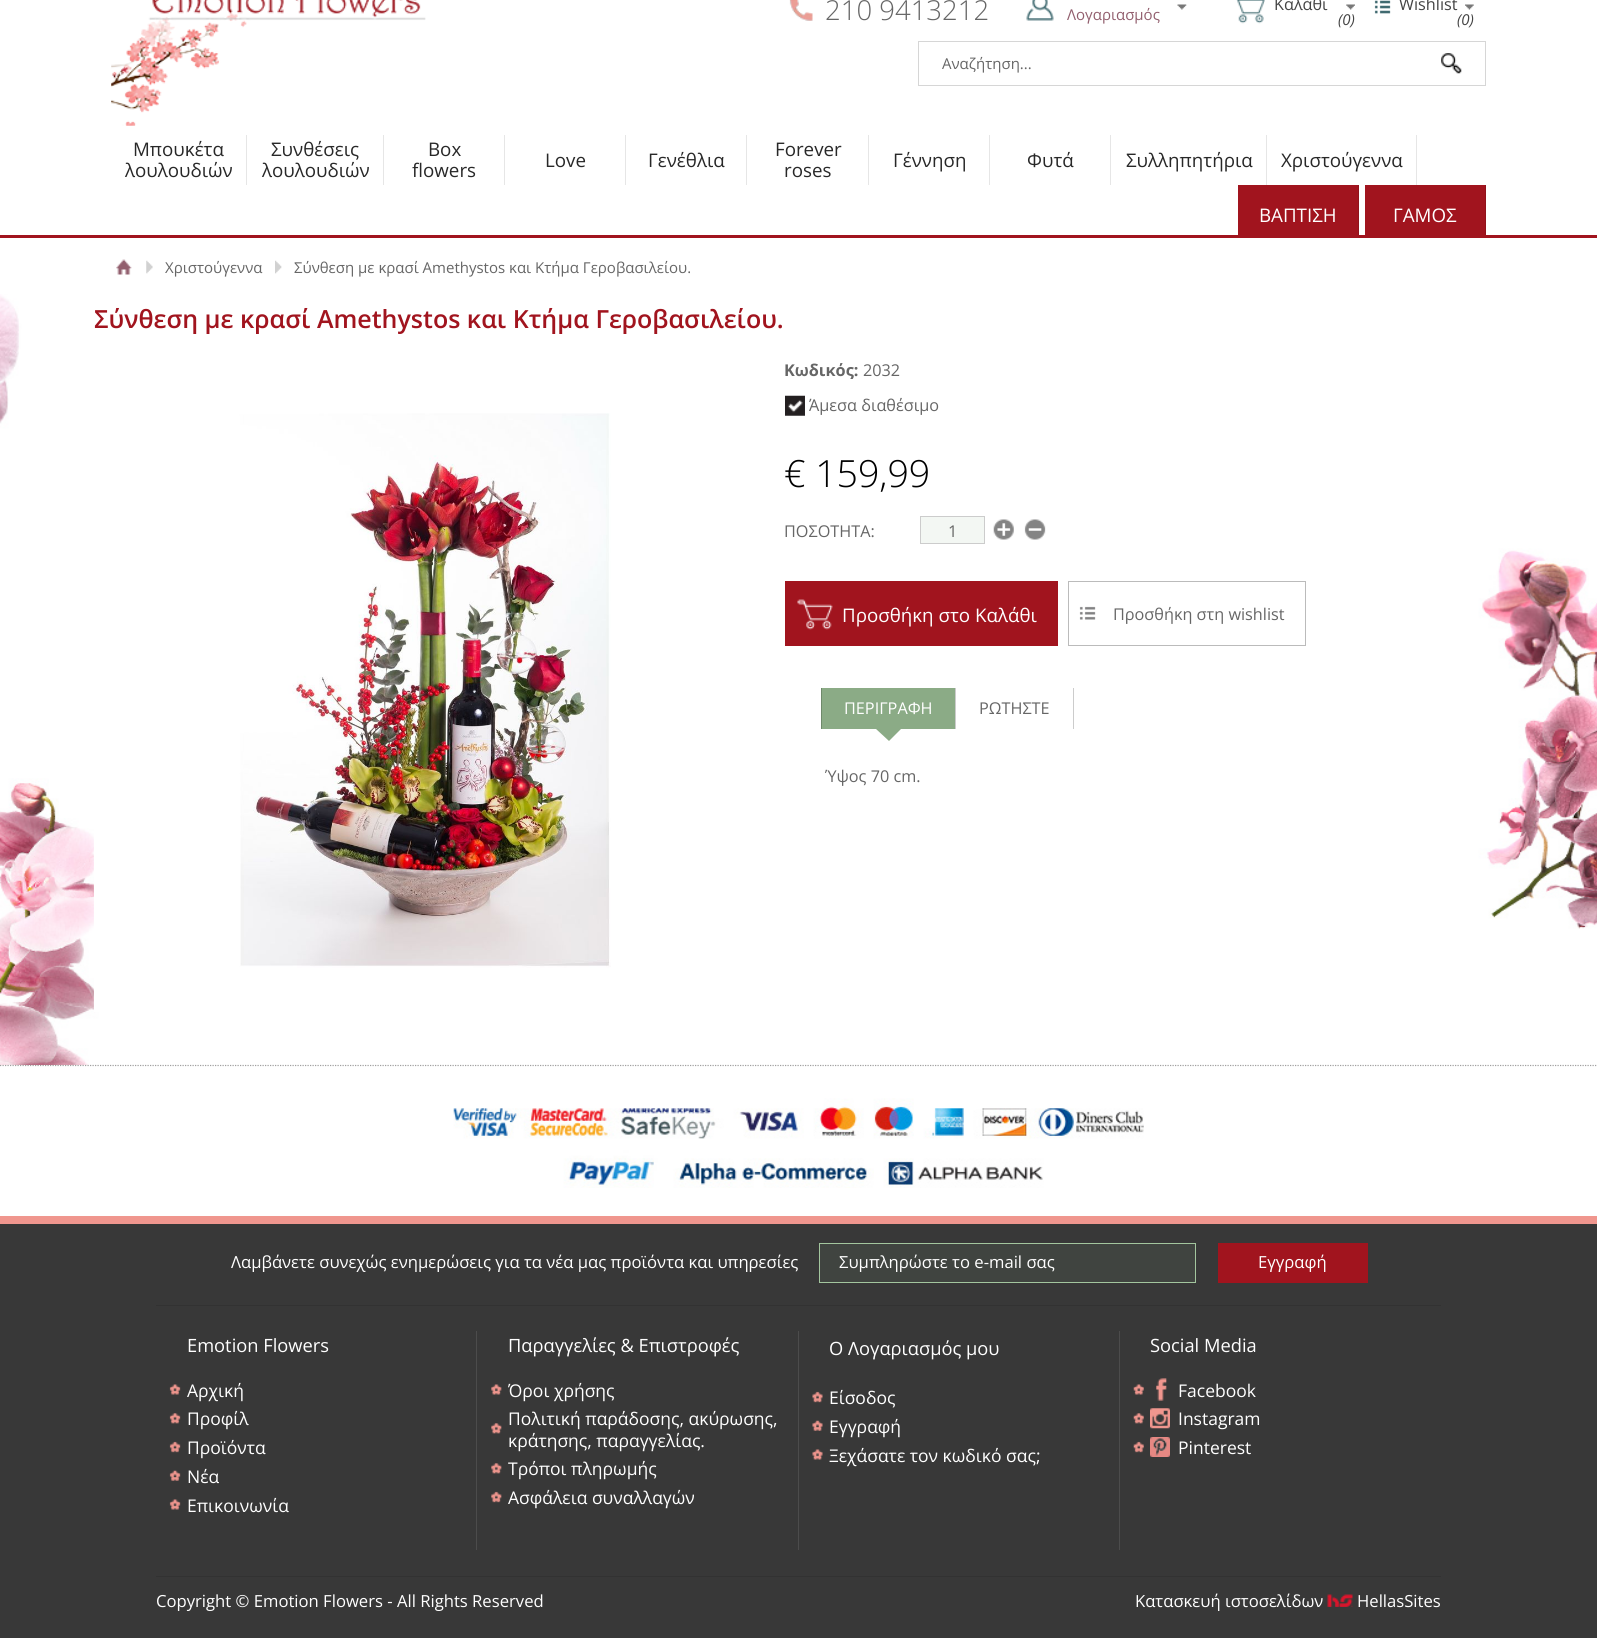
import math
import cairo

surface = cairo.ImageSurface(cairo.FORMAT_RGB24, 1597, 1652)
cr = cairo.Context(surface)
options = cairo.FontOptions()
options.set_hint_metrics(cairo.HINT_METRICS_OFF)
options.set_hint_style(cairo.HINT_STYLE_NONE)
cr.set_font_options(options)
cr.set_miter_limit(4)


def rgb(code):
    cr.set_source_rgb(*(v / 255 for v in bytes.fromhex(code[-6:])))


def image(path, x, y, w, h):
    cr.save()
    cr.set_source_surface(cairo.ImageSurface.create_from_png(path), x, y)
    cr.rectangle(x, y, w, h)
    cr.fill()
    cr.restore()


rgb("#ffffff")
cr.paint()
image("img/1.png", 0, 294, 1597, 771)
image("img/2.png", 111, 0, 315, 126)
image("img/3.png", 789, 0, 24, 21)
image("img/4.png", 1026, 0, 28, 21)
image("img/5.png", 1177, 4, 10, 6)
image("img/6.png", 1236, 0, 29, 24)
image("img/7.png", 1346, 4, 9, 6)
image("img/8.png", 1374, 0, 17, 14)
image("img/9.png", 1465, 4, 9, 6)
cr.rectangle(918.5, 41.5, 567, 44)
rgb("#d6d6d6")
cr.set_line_width(1)
cr.stroke()
image("img/10.png", 1441, 53, 21, 21)
for x, y, w, h, color in [
    (0, 235, 1597, 3, "#a1141e"),
    (246, 135, 1, 50, "#e6e6e6"),
    (383, 135, 1, 50, "#e6e6e6"),
    (504, 135, 1, 50, "#e6e6e6"),
    (625, 135, 1, 50, "#e6e6e6"),
    (746, 135, 1, 50, "#e6e6e6"),
    (868, 135, 1, 50, "#e6e6e6"),
    (989, 135, 1, 50, "#e6e6e6"),
    (1110, 135, 1, 50, "#e6e6e6"),
    (1266, 135, 1, 50, "#e6e6e6"),
    (1416, 135, 1, 50, "#e6e6e6"),
    (1238, 185, 120, 50, "#a1141e"),
    (1358, 185, 1, 50, "#91121b"),
    (1365, 185, 120, 50, "#a1141e"),
    (1485, 185, 1, 50, "#91121b"),
]:
    rgb(color)
    cr.rectangle(x, y, w, h)
    cr.fill()
image("img/11.png", 116, 259, 16, 16)
image("img/12.png", 146, 260, 7, 14)
image("img/13.png", 275, 260, 7, 14)
image("img/14.png", 93, 413, 518, 599)
image("img/15.png", 785, 395, 20, 21)
rgb("#f3f7f3")
cr.rectangle(920.5, 516.5, 64, 27)
cr.fill_preserve()
rgb("#cccccc")
cr.stroke()
image("img/16.png", 993, 519, 21, 21)
image("img/17.png", 1024, 519, 22, 21)
rgb("#a1141e")
cr.rectangle(785, 581, 273, 65)
cr.fill()
image("img/18.png", 797, 599, 36, 31)
image("img/19.png", 1079, 606, 17, 14)
cr.rectangle(1068.5, 581.5, 237, 64)
rgb("#bbbbbb")
cr.stroke()
rgb("#8bab86")
cr.rectangle(822, 688, 133, 41)
cr.fill()
rgb("#6f896b")
cr.rectangle(821, 688, 1, 41)
cr.fill()
rgb("#8bab86")
cr.new_path()
cr.move_to(876, 729)
cr.line_to(901, 729)
cr.line_to(889, 741)
cr.close_path()
cr.fill()
rgb("#cccccc")
cr.rectangle(1073, 688, 1, 41)
cr.fill()
cr.rectangle(955, 688, 1, 41)
cr.fill()
cr.new_path()
cr.move_to(0, 1065.5)
cr.line_to(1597.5, 1065.5)
rgb("#a0a0a0")
cr.set_line_width(1.2)
cr.set_dash([1.25, 1.25])
cr.stroke()
image("img/20.png", 453, 1098, 691, 90)
for x, y, w, h, color in [
    (0, 1224, 1597, 414, "#383838"),
    (0, 1216, 1597, 8, "#f0968e"),
    (156, 1305, 1285, 1, "#323232"),
]:
    rgb(color)
    cr.rectangle(x, y, w, h)
    cr.fill()
rgb("#404440")
cr.rectangle(819.5, 1243.5, 376, 39)
cr.fill_preserve()
rgb("#a3c69e")
cr.set_line_width(1)
cr.set_dash([])
cr.stroke()
rgb("#a1141e")
cr.rectangle(1218, 1243, 150, 40)
cr.fill()
image("img/21.png", 169, 1384, 12, 11)
image("img/22.png", 169, 1413, 12, 11)
image("img/23.png", 169, 1441, 12, 12)
image("img/24.png", 169, 1470, 12, 11)
image("img/21.png", 169, 1499, 12, 11)
rgb("#4c4c4c")
cr.rectangle(476, 1331, 1, 219)
cr.fill()
image("img/25.png", 491, 1384, 11, 11)
image("img/26.png", 491, 1423, 11, 11)
image("img/26.png", 491, 1463, 11, 11)
image("img/27.png", 491, 1491, 11, 12)
cr.rectangle(798, 1331, 1, 219)
cr.fill()
image("img/28.png", 812, 1391, 11, 12)
image("img/29.png", 812, 1420, 11, 11)
image("img/30.png", 812, 1449, 11, 11)
cr.rectangle(1119, 1331, 1, 219)
cr.fill()
image("img/31.png", 1133, 1384, 11, 11)
image("img/32.png", 1156, 1378, 11, 23)
image("img/33.png", 1133, 1413, 11, 11)
image("img/34.png", 1150, 1408, 20, 21)
image("img/35.png", 1133, 1441, 11, 12)
image("img/36.png", 1150, 1437, 20, 20)
rgb("#323232")
cr.rectangle(156, 1576, 1285, 1)
cr.fill()
image("img/37.png", 1327, 1594, 26, 13)
cr.select_font_face("Open Sans Light")
cr.set_font_size(27.5)
rgb("#666666")
cr.move_to(825, 20)
cr.show_text("210 9413212")
cr.select_font_face("Open Sans")
cr.set_font_size(15)
rgb("#925f6e")
cr.move_to(1067, 20)
cr.show_text("Λογαριασμός")
cr.set_font_size(16.25)
rgb("#444444")
cr.move_to(1274, 10)
cr.show_text("Καλάθι")
cr.select_font_face("Open Sans", cairo.FONT_SLANT_ITALIC)
cr.set_font_size(15)
cr.move_to(1338, 25)
cr.show_text("(0)")
cr.select_font_face("Open Sans")
cr.set_font_size(16.25)
cr.move_to(1399, 10)
cr.show_text("Wishlist")
cr.select_font_face("Open Sans", cairo.FONT_SLANT_ITALIC)
cr.set_font_size(15)
cr.move_to(1457, 25)
cr.show_text("(0)")
cr.select_font_face("Open Sans")
rgb("#666666")
cr.move_to(942, 69)
cr.show_text("Αναζήτηση...")
cr.set_font_size(18.75)
rgb("#282828")
for x, y, s in [
    (133, 156, "Μπουκέτα"),
    (125, 177, "λουλουδιών"),
    (271, 156, "Συνθέσεις"),
    (262, 177, "λουλουδιών"),
    (428, 156, "Box"),
    (412, 177, "flowers"),
    (545, 167, "Love"),
    (648, 167, "Γενέθλια"),
    (775, 156, "Forever"),
    (784, 177, "roses"),
    (893, 167, "Γέννηση"),
    (1027, 167, "Φυτά"),
    (1126, 167, "Συλληπητήρια"),
    (1281, 167, "Χριστούγεννα"),
]:
    cr.move_to(x, y)
    cr.show_text(s)
rgb("#ffffff")
cr.move_to(1259, 222)
cr.show_text("ΒΑΠΤΙΣΗ")
cr.move_to(1393, 222)
cr.show_text("ΓΑΜΟΣ")
cr.set_font_size(15)
rgb("#666666")
cr.move_to(165, 273)
cr.show_text("Χριστούγεννα")
cr.move_to(294, 273)
cr.show_text("Σύνθεση με κρασί Amethystos και Κτήμα Γεροβασιλείου.")
cr.select_font_face("Open Sans SemiBold")
cr.set_font_size(25)
rgb("#a1141e")
cr.move_to(94, 328)
cr.show_text("Σύνθεση με κρασί Amethystos και Κτήμα Γεροβασιλείου.")
cr.select_font_face("Open Sans", cairo.FONT_SLANT_NORMAL, cairo.FONT_WEIGHT_BOLD)
cr.set_font_size(16.25)
rgb("#666666")
cr.move_to(784, 376)
cr.show_text("Κωδικός:")
cr.select_font_face("Open Sans")
cr.move_to(863, 376)
cr.show_text("2032")
cr.move_to(809, 411)
cr.show_text("Άμεσα διαθέσιμο")
cr.select_font_face("Open Sans Light")
cr.set_font_size(37.5)
rgb("#000000")
cr.move_to(784, 487)
cr.show_text("€ 159,99")
cr.select_font_face("Open Sans")
cr.set_font_size(16.25)
rgb("#666666")
cr.move_to(784, 537)
cr.show_text("ΠΟΣΟΤΗΤΑ:")
cr.move_to(948, 537)
cr.show_text("1")
cr.set_font_size(18.75)
rgb("#ffffff")
cr.move_to(842, 622)
cr.show_text("Προσθήκη στο Καλάθι")
cr.set_font_size(16.25)
rgb("#666666")
cr.move_to(1113, 620)
cr.show_text("Προσθήκη στη wishlist")
rgb("#ffffff")
cr.move_to(844, 714)
cr.show_text("ΠΕΡΙΓΡΑΦΗ")
rgb("#666666")
cr.move_to(979, 714)
cr.show_text("ΡΩΤΗΣΤΕ")
cr.move_to(825, 782)
cr.show_text("Ύψος 70 cm.")
cr.set_font_size(16.65)
rgb("#ffffff")
for x, y, s in [
    (231, 1268, "Λαμβάνετε συνεχώς ενημερώσεις για τα νέα μας προϊόντα και υπηρεσίες"),
    (839, 1268, "Συμπληρώστε το e-mail σας"),
    (1258, 1268, "Εγγραφή"),
]:
    cr.move_to(x, y)
    cr.show_text(s)
cr.set_font_size(18.3)
cr.move_to(187, 1352)
cr.show_text("Emotion Flowers")
cr.set_font_size(17.5)
for x, y, s in [
    (187, 1397, "Αρχική"),
    (187, 1425, "Προφίλ"),
    (187, 1454, "Προϊόντα"),
    (187, 1483, "Νέα"),
    (187, 1512, "Επικοινωνία"),
]:
    cr.move_to(x, y)
    cr.show_text(s)
cr.set_font_size(18.3)
cr.move_to(508, 1352)
cr.show_text("Παραγγελίες & Επιστροφές")
cr.set_font_size(17.5)
for x, y, s in [
    (508, 1397, "Όροι χρήσης"),
    (508, 1425, "Πολιτική παράδοσης, ακύρωσης,"),
    (508, 1447, "κράτησης, παραγγελίας."),
    (508, 1475, "Τρόποι πληρωμής"),
    (508, 1504, "Ασφάλεια συναλλαγών"),
]:
    cr.move_to(x, y)
    cr.show_text(s)
cr.set_font_size(18.3)
cr.move_to(829, 1355)
cr.show_text("Ο Λογαριασμός μου")
cr.set_font_size(17.5)
for x, y, s in [
    (829, 1404, "Είσοδος"),
    (829, 1433, "Εγγραφή"),
    (829, 1462, "Ξεχάσατε τον κωδικό σας;"),
]:
    cr.move_to(x, y)
    cr.show_text(s)
cr.set_font_size(18.3)
cr.move_to(1150, 1352)
cr.show_text("Social Media")
cr.set_font_size(17.5)
for x, y, s in [
    (1178, 1397, "Facebook"),
    (1178, 1425, "Instagram"),
    (1178, 1454, "Pinterest"),
]:
    cr.move_to(x, y)
    cr.show_text(s)
cr.set_font_size(16.65)
for x, y, s in [
    (156, 1607, "Copyright © Emotion Flowers - All Rights Reserved"),
    (1135, 1607, "Κατασκευή ιστοσελίδων"),
    (1357, 1607, "HellasSites"),
]:
    cr.move_to(x, y)
    cr.show_text(s)
surface.write_to_png("page.png")
